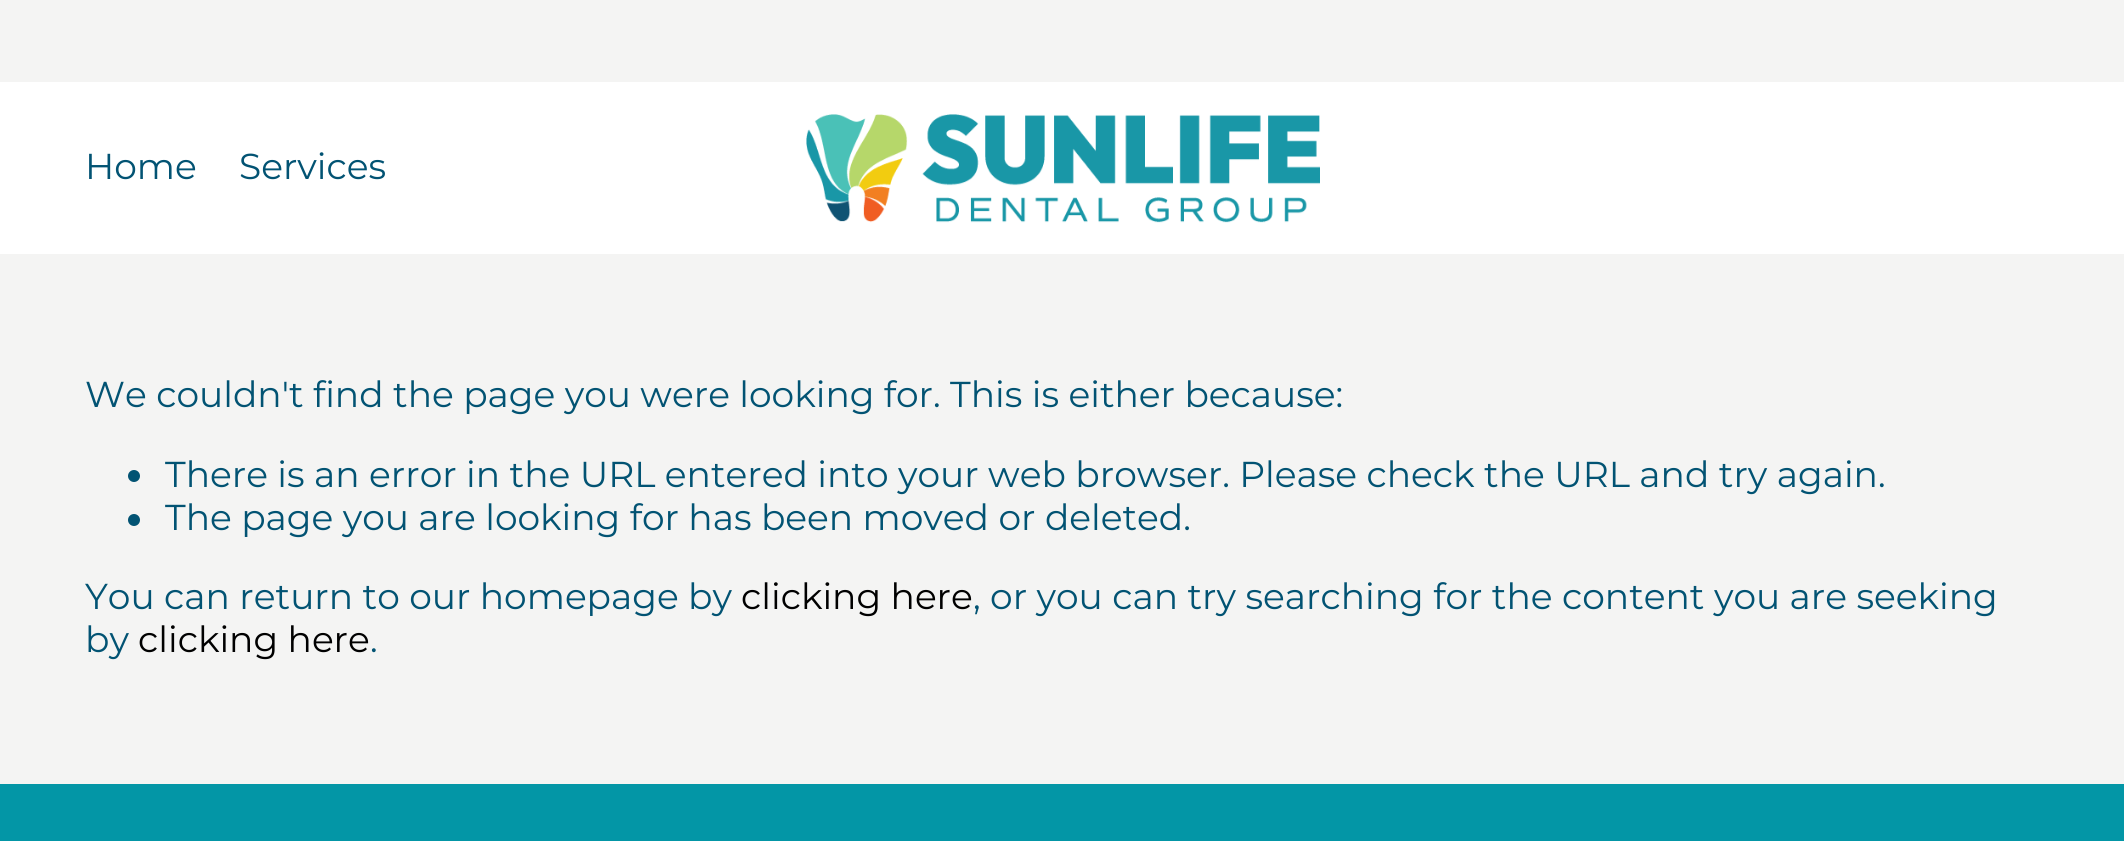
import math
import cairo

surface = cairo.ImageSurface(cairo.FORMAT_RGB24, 2124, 841)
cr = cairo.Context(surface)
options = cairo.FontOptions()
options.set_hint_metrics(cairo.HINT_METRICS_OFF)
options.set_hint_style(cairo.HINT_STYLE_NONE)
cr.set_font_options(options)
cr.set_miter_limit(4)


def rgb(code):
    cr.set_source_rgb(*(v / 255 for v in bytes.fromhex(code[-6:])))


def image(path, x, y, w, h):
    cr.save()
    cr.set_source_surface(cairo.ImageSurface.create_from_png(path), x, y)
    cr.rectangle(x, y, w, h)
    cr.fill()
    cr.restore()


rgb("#f4f4f3")
cr.paint()
rgb("#ffffff")
cr.rectangle(0, 82, 2124, 172)
cr.fill()
image("img/1.png", 806, 114, 514, 109)
rgb("#025373")
cr.arc(134, 476, 6, 0, 2 * math.pi)
cr.fill()
cr.arc(134, 520, 6, 0, 2 * math.pi)
cr.fill()
rgb("#0396a6")
cr.rectangle(0, 784, 2124, 57)
cr.fill()
cr.select_font_face("Montserrat")
cr.set_font_size(36)
rgb("#025373")
for x, y, s in [
    (85, 179, "Home"),
    (239, 179, "Services"),
    (85, 407, "We couldn't find the page you were looking for. This is either because:"),
    (165, 487, "There is an error in the URL entered into your web browser. Please check the URL and try again."),
    (165, 530, "The page you are looking for has been moved or deleted."),
    (85, 609, "You can return to our homepage by"),
]:
    cr.move_to(x, y)
    cr.show_text(s)
rgb("#000000")
cr.move_to(741, 609)
cr.show_text("clicking here")
rgb("#025373")
cr.move_to(973, 609)
cr.show_text(", or you can try searching for the content you are seeking")
cr.move_to(85, 652)
cr.show_text("by")
rgb("#000000")
cr.move_to(138, 652)
cr.show_text("clicking here")
rgb("#025373")
cr.move_to(370, 652)
cr.show_text(".")
surface.write_to_png("page.png")
